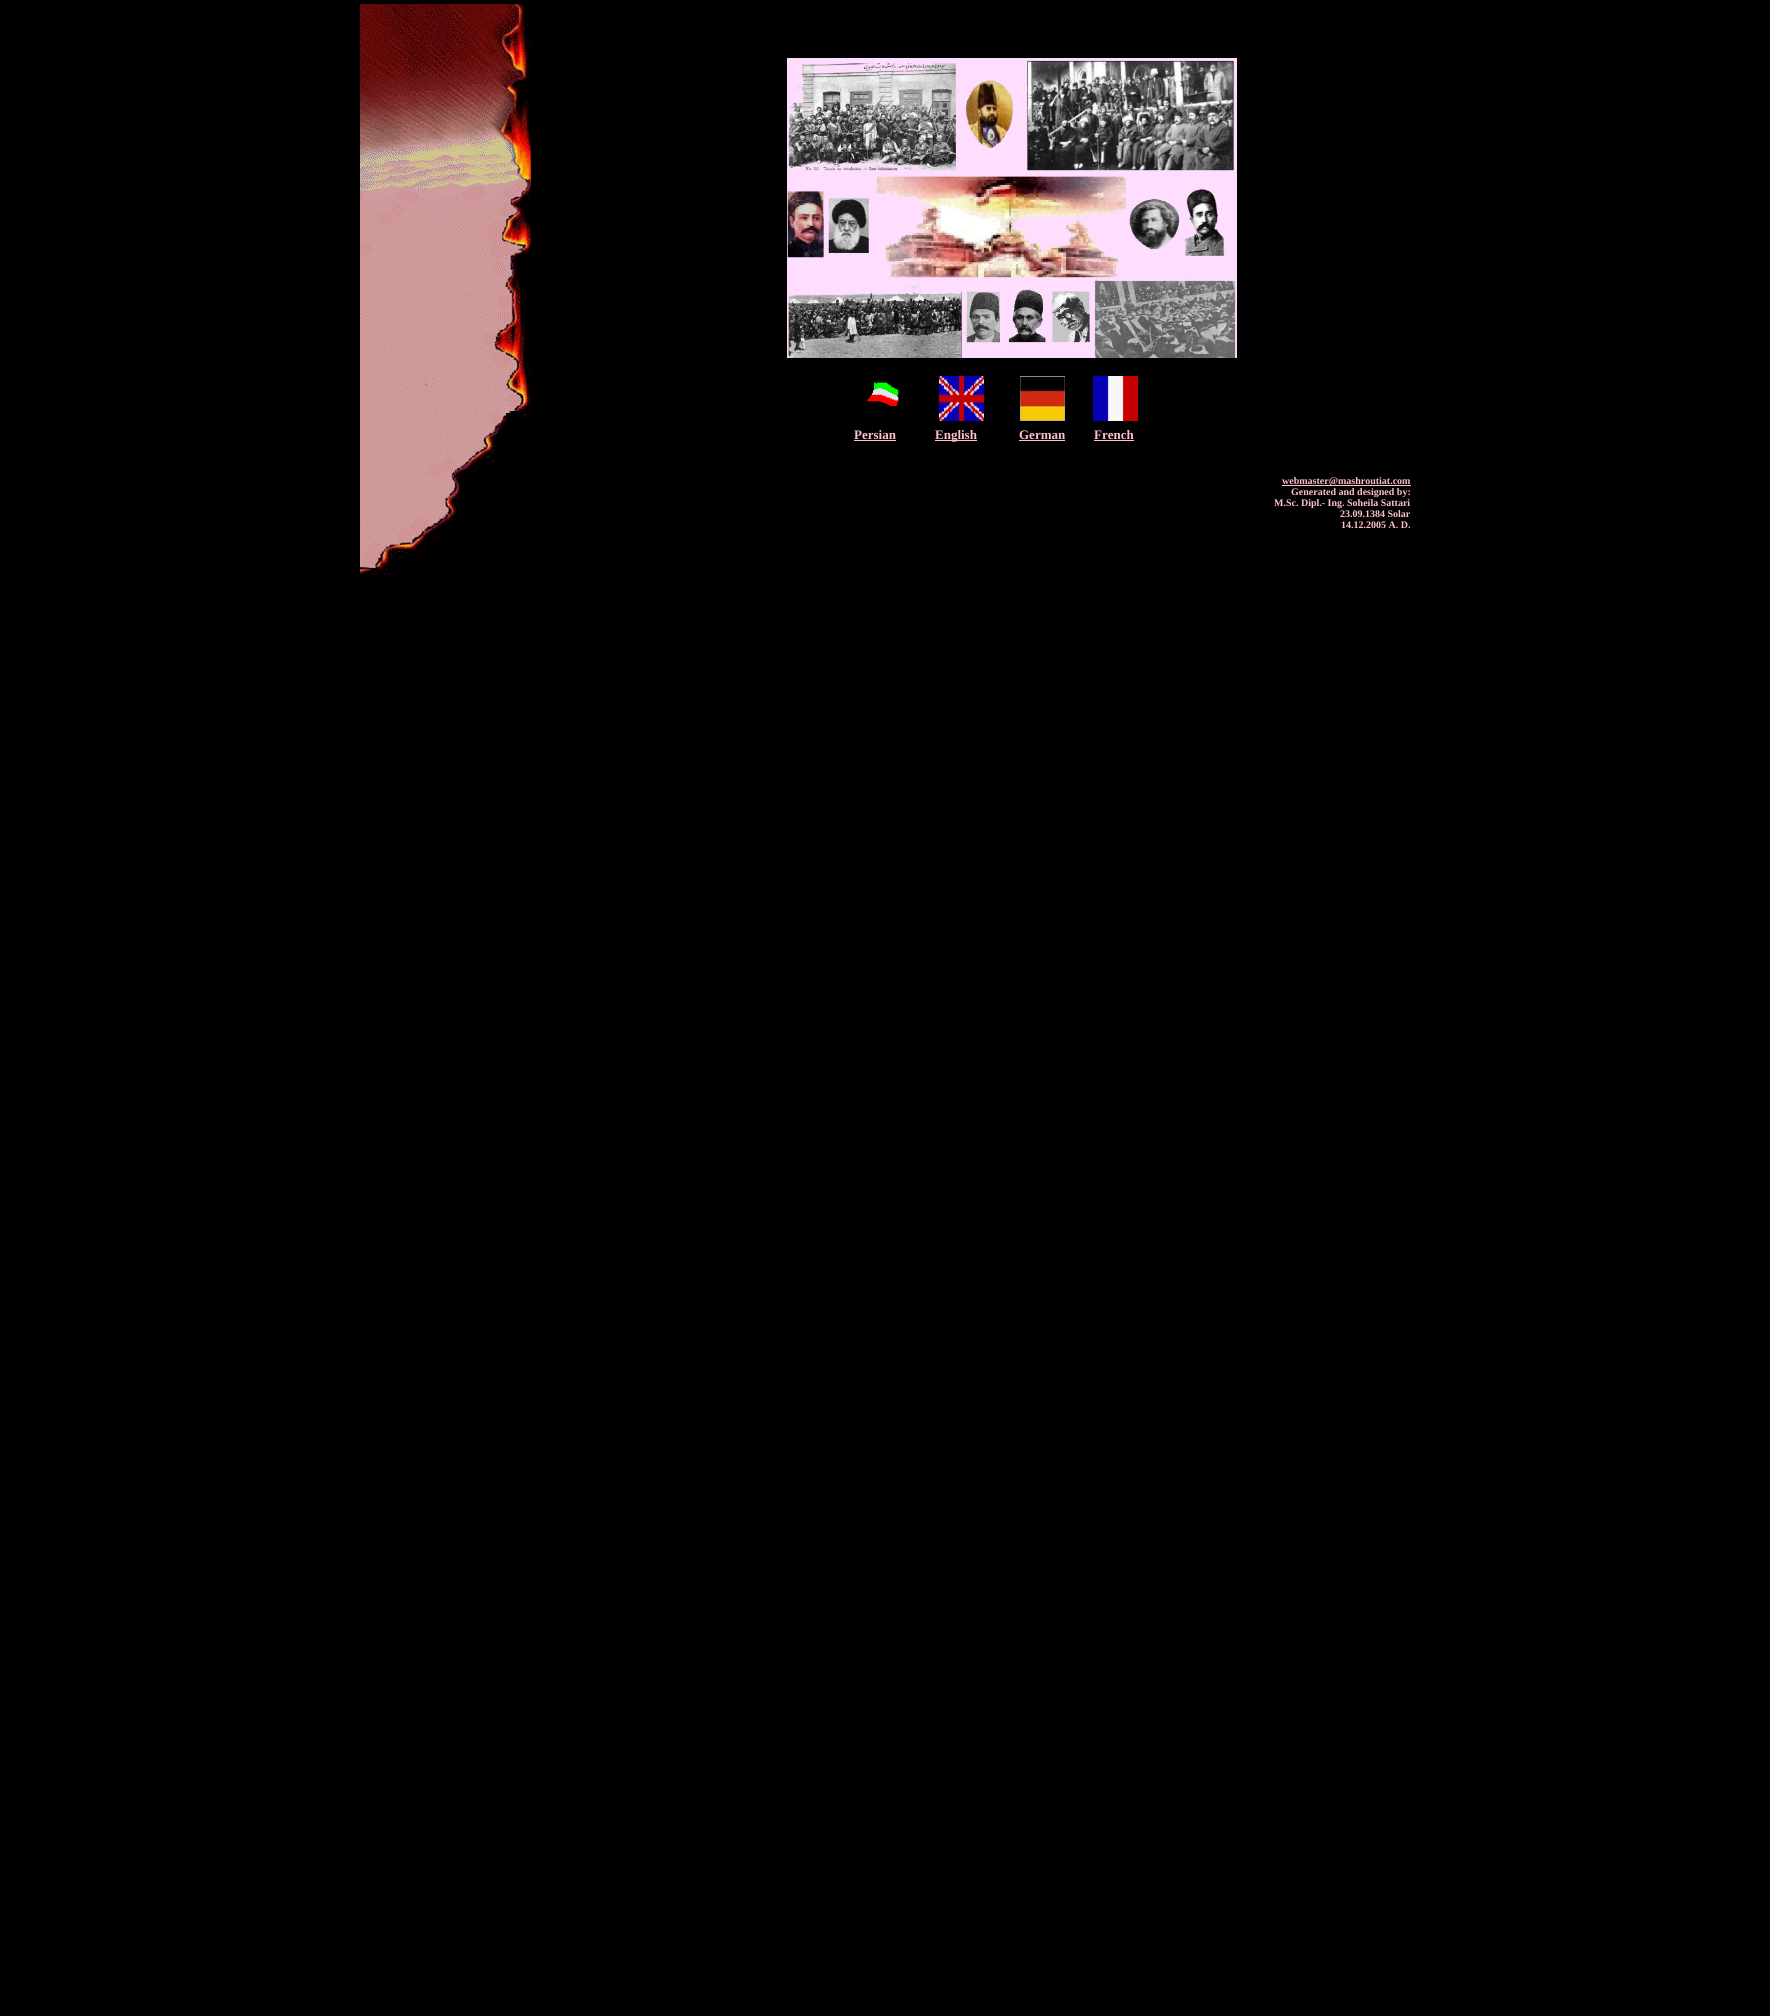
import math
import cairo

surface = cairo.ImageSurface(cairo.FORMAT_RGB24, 1770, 2016)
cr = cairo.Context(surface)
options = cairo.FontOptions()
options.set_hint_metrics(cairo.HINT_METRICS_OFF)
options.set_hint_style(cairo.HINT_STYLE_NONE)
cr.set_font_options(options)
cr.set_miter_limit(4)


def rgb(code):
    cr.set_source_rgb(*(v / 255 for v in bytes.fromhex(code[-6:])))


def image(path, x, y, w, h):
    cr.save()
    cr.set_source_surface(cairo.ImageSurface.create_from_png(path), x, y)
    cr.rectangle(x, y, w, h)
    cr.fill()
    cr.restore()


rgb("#000000")
cr.paint()
image("img/1.png", 360, 4, 171, 571)
image("img/2.png", 787, 58, 450, 300)
image("img/3.png", 867, 382, 32, 24)
image("img/4.png", 939, 376, 45, 45)
image("img/5.png", 1020, 376, 45, 45)
image("img/6.png", 1093, 376, 45, 45)
for x, y, w, h, color in [
    (854, 440, 42, 1, "#ffc0cb"),
    (935, 440, 42, 1, "#ffc0cb"),
    (1019, 440, 46, 1, "#ffc0cb"),
    (1094, 440, 40, 1, "#ffc0cb"),
    (1282, 485, 129, 1, "#ffc0cb"),
]:
    rgb(color)
    cr.rectangle(x, y, w, h)
    cr.fill()
cr.select_font_face("Liberation Serif", cairo.FONT_SLANT_NORMAL, cairo.FONT_WEIGHT_BOLD)
cr.set_font_size(13)
for x, y, s in [
    (854, 439, "Persian"),
    (935, 439, "English"),
    (1019, 439, "German"),
    (1094, 439, "French"),
]:
    cr.move_to(x, y)
    cr.show_text(s)
cr.set_font_size(10)
for x, y, s in [
    (1282, 484, "webmaster@mashroutiat.com"),
    (1291, 495, "Generated and designed by:"),
    (1274, 506, "M.Sc. Dipl.- Ing. Soheila Sattari"),
    (1340, 517, "23.09.1384 Solar"),
    (1341, 528, "14.12.2005 A. D."),
]:
    cr.move_to(x, y)
    cr.show_text(s)
surface.write_to_png("page.png")
